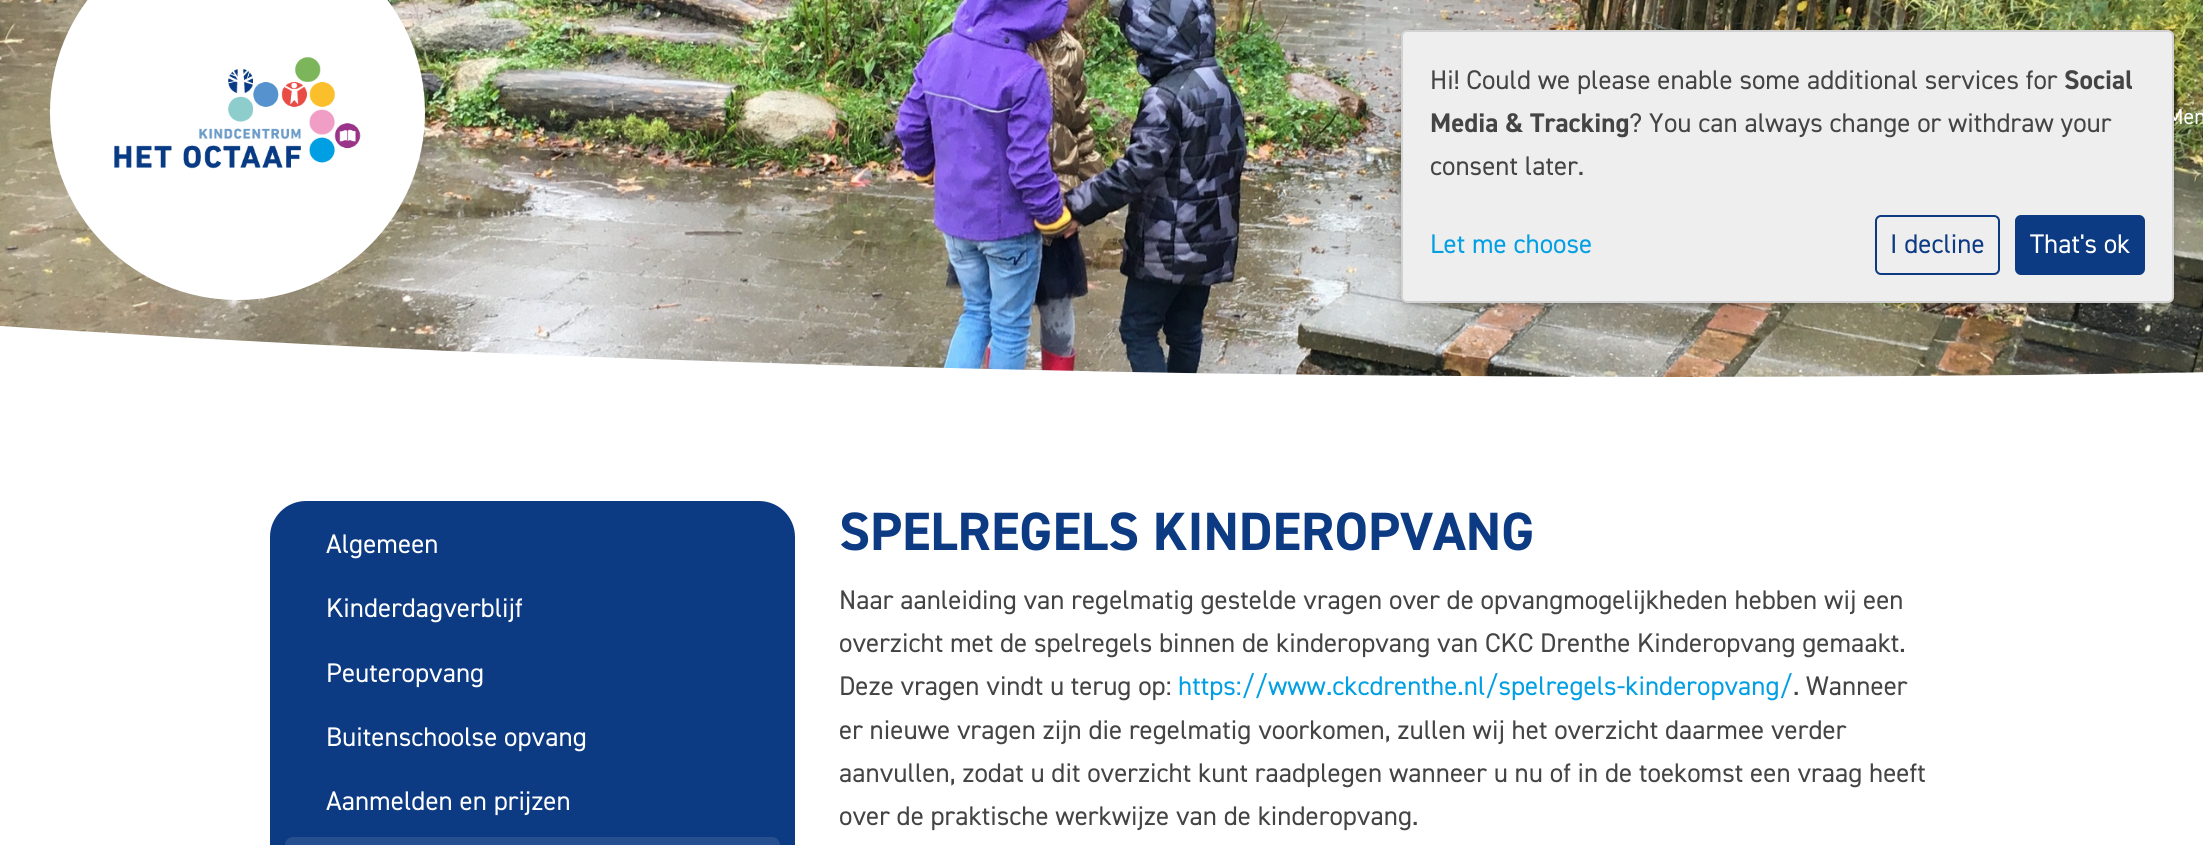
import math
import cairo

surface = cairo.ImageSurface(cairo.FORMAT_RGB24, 2203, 845)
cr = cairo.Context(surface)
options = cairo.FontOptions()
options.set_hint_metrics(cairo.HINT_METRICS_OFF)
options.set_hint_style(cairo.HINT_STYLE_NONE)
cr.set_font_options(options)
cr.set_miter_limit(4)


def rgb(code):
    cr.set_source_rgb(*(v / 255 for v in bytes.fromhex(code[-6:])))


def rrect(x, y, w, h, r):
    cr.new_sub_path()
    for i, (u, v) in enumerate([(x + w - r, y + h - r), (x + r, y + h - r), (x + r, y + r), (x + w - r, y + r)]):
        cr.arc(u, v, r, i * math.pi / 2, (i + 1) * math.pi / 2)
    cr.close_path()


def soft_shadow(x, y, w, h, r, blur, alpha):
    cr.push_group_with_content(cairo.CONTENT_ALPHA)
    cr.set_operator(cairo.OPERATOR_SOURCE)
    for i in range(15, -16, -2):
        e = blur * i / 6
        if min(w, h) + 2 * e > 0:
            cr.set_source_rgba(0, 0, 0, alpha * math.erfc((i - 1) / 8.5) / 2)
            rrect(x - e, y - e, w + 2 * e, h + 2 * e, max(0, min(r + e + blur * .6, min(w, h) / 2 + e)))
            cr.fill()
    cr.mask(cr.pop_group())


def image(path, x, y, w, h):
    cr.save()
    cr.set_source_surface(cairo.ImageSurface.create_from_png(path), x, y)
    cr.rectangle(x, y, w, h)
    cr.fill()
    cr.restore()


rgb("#ffffff")
cr.paint()
image("img/1.png", 0, 0, 2203, 377)
rgb("#000000")
soft_shadow(1401, 33, 773, 273, 6, 3, 0.2)
rgb("#ffffff")
cr.arc(237.5, 112.5, 187.5, 0, 2 * math.pi)
cr.fill()
image("img/2.png", 114, 57, 247, 112)
rgb("#0d3b83")
rrect(270, 501, 525, 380, 36)
cr.fill()
rgb("#254f8f")
rrect(285, 837, 495, 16, 8)
cr.fill()
cr.select_font_face("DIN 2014")
cr.set_font_size(22)
rgb("#ffffff")
cr.move_to(2167, 124)
cr.show_text("Men")
rgb("#eeeeee")
rrect(1402, 31, 771, 271, 5)
cr.fill_preserve()
rgb("#d1d1d1")
cr.stroke()
rgb("#0d3b83")
rrect(2015, 215, 130, 60, 6)
cr.fill()
cr.set_font_size(27)
rgb("#ffffff")
cr.move_to(2030, 253)
cr.show_text("That's ok")
rrect(1876, 216, 123, 58, 5)
rgb("#0d3b83")
cr.stroke()
cr.move_to(1890, 253)
cr.show_text("I decline")
rgb("#039fe3")
cr.move_to(1430, 253)
cr.show_text("Let me choose")
rgb("#444444")
cr.move_to(1430, 175)
cr.show_text("consent later.")
cr.move_to(1629, 132)
cr.show_text("? You can always change or withdraw your")
cr.select_font_face("DIN 2014", cairo.FONT_SLANT_NORMAL, cairo.FONT_WEIGHT_BOLD)
cr.move_to(1430, 132)
cr.show_text("Media & Tracking")
cr.move_to(2064, 89)
cr.show_text("Social")
cr.select_font_face("DIN 2014")
cr.move_to(1430, 89)
cr.show_text("Hi! Could we please enable some additional services for")
rgb("#ffffff")
for x, y, s in [
    (326, 553, "Algemeen"),
    (326, 617, "Kinderdagverblijf"),
    (326, 682, "Peuteropvang"),
    (326, 746, "Buitenschoolse opvang"),
    (326, 810, "Aanmelden en prijzen"),
]:
    cr.move_to(x, y)
    cr.show_text(s)
cr.select_font_face("DIN 2014", cairo.FONT_SLANT_NORMAL, cairo.FONT_WEIGHT_BOLD)
cr.set_font_size(54)
rgb("#0d3b83")
cr.move_to(839, 550)
cr.show_text("SPELREGELS KINDEROPVANG")
cr.select_font_face("DIN 2014")
cr.set_font_size(27)
rgb("#444444")
for x, y, s in [
    (839, 609, "Naar aanleiding van regelmatig gestelde vragen over de opvangmogelijkheden hebben wij een"),
    (839, 652, "overzicht met de spelregels binnen de kinderopvang van CKC Drenthe Kinderopvang gemaakt."),
    (839, 695, "Deze vragen vindt u terug op:"),
]:
    cr.move_to(x, y)
    cr.show_text(s)
rgb("#039fe3")
cr.move_to(1178, 695)
cr.show_text("https://www.ckcdrenthe.nl/spelregels-kinderopvang/")
rgb("#444444")
for x, y, s in [
    (1793, 695, ". Wanneer"),
    (839, 739, "er nieuwe vragen zijn die regelmatig voorkomen, zullen wij het overzicht daarmee verder"),
    (839, 782, "aanvullen, zodat u dit overzicht kunt raadplegen wanneer u nu of in de toekomst een vraag heeft"),
    (839, 825, "over de praktische werkwijze van de kinderopvang."),
]:
    cr.move_to(x, y)
    cr.show_text(s)
surface.write_to_png("page.png")
